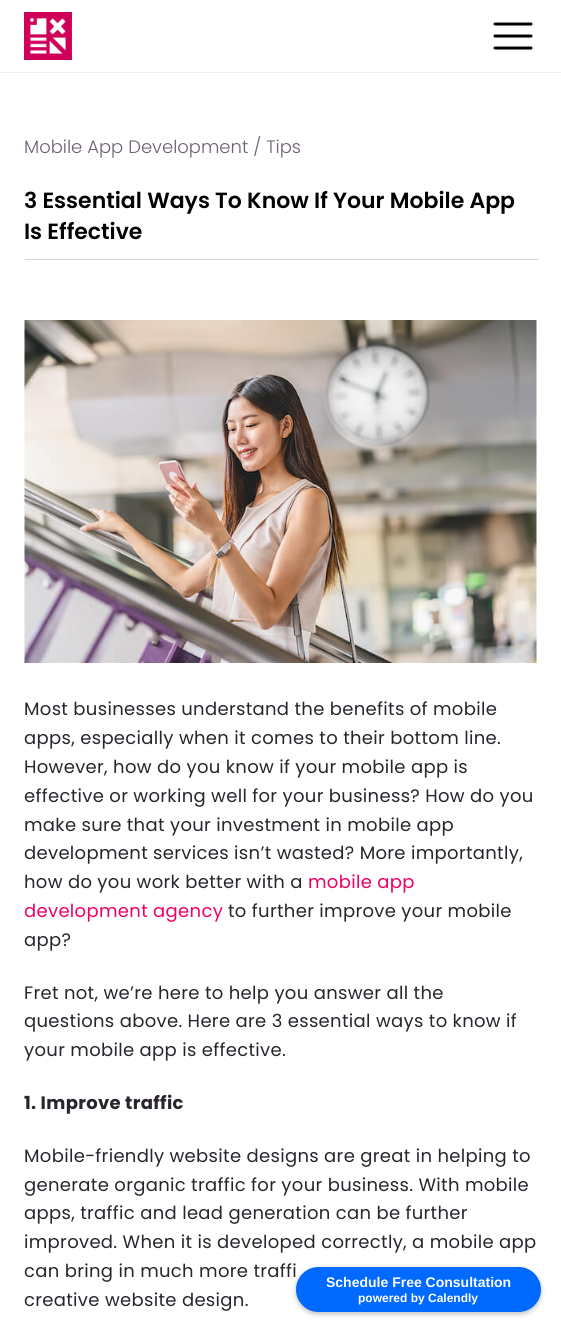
import math
import cairo

surface = cairo.ImageSurface(cairo.FORMAT_RGB24, 561, 1327)
cr = cairo.Context(surface)
options = cairo.FontOptions()
options.set_hint_metrics(cairo.HINT_METRICS_OFF)
options.set_hint_style(cairo.HINT_STYLE_NONE)
cr.set_font_options(options)
cr.set_miter_limit(4)


def rgb(code):
    cr.set_source_rgb(*(v / 255 for v in bytes.fromhex(code[-6:])))


def tracked(x, y, s, letter, word):
    cr.move_to(x, y)
    for ch in s:
        cr.show_text(ch)
        cr.rel_move_to(letter + word * (ch == ' '), 0)


def rrect(x, y, w, h, r):
    cr.new_sub_path()
    for i, (u, v) in enumerate([(x + w - r, y + h - r), (x + r, y + h - r), (x + r, y + r), (x + w - r, y + r)]):
        cr.arc(u, v, r, i * math.pi / 2, (i + 1) * math.pi / 2)
    cr.close_path()


def soft_shadow(x, y, w, h, r, blur, alpha):
    cr.push_group_with_content(cairo.CONTENT_ALPHA)
    cr.set_operator(cairo.OPERATOR_SOURCE)
    for i in range(15, -16, -2):
        e = blur * i / 6
        if min(w, h) + 2 * e > 0:
            cr.set_source_rgba(0, 0, 0, alpha * math.erfc((i - 1) / 8.5) / 2)
            rrect(x - e, y - e, w + 2 * e, h + 2 * e, max(0, min(r + e + blur * .6, min(w, h) / 2 + e)))
            cr.fill()
    cr.mask(cr.pop_group())


def image(path, x, y, w, h):
    cr.save()
    cr.set_source_surface(cairo.ImageSurface.create_from_png(path), x, y)
    cr.rectangle(x, y, w, h)
    cr.fill()
    cr.restore()


rgb("#ffffff")
cr.paint()
rgb("#eff0f2")
cr.rectangle(0, 72, 561, 1)
cr.fill()
image("img/1.png", 24, 12, 48, 48)
cr.new_path()
cr.move_to(495, 24)
cr.line_to(531, 24)
cr.move_to(495, 36)
cr.line_to(531, 36)
cr.move_to(495, 48)
cr.line_to(531, 48)
rgb("#000000")
cr.set_line_width(3)
cr.set_line_cap(cairo.LINE_CAP_ROUND)
cr.set_line_join(cairo.LINE_JOIN_ROUND)
cr.stroke()
rgb("#d3d3d5")
cr.rectangle(25, 259, 513, 1)
cr.fill()
image("img/2.png", 24, 320, 513, 343)
rgb("#000000")
soft_shadow(296, 1269, 245, 45, 22.5, 2.5, 0.25)
rgb("#0069ff")
rrect(296, 1267, 245, 45, 22.5)
cr.fill()
cr.select_font_face("Poppins Light")
cr.set_font_size(18)
rgb("#6c5f73")
cr.move_to(24, 153)
cr.show_text("Mobile App Development / Tips")
cr.select_font_face("Poppins SemiBold")
cr.set_font_size(22)
rgb("#000000")
cr.move_to(24, 208)
cr.show_text("3 Essential Ways To Know If Your Mobile App")
cr.move_to(24, 239)
cr.show_text("Is Effective")
cr.select_font_face("Poppins")
cr.set_font_size(18)
rgb("#2a252d")
for x, y, s in [
    (24, 715, "Most businesses understand the benefits of mobile"),
    (24, 744, "apps, especially when it comes to their bottom line."),
    (24, 773, "However, how do you know if your mobile app is"),
    (24, 802, "effective or working well for your business? How do you"),
    (24, 831, "make sure that your investment in mobile app"),
    (24, 859, "development services isn’t wasted? More importantly,"),
    (24, 888, "how do you work better with a"),
]:
    tracked(x, y, s, 0.32, 0)
rgb("#ee0065")
tracked(308, 888, "mobile app", 0.32, 0)
tracked(24, 917, "development agency", 0.32, 0)
rgb("#2a252d")
for x, y, s in [
    (228, 917, "to further improve your mobile"),
    (24, 946, "app?"),
    (24, 999, "Fret not, we’re here to help you answer all the"),
    (24, 1027, "questions above. Here are 3 essential ways to know if"),
    (24, 1056, "your mobile app is effective."),
]:
    tracked(x, y, s, 0.32, 0)
cr.select_font_face("Poppins", cairo.FONT_SLANT_NORMAL, cairo.FONT_WEIGHT_BOLD)
tracked(24, 1109, "1. Improve traffic", 0.32, 0)
cr.select_font_face("Poppins")
for x, y, s in [
    (24, 1162, "Mobile-friendly website designs are great in helping to"),
    (24, 1191, "generate organic traffic for your business. With mobile"),
    (24, 1219, "apps, traffic and lead generation can be further"),
    (24, 1248, "improved. When it is developed correctly, a mobile app"),
    (24, 1277, "can bring in much more traffi"),
    (24, 1306, "creative website design."),
]:
    tracked(x, y, s, 0.32, 0)
cr.select_font_face("Liberation Sans", cairo.FONT_SLANT_NORMAL, cairo.FONT_WEIGHT_BOLD)
cr.set_font_size(14)
rgb("#ffffff")
cr.move_to(326, 1287)
cr.show_text("Schedule Free Consultation")
cr.set_font_size(12)
cr.move_to(358, 1302)
cr.show_text("powered by Calendly")
surface.write_to_png("page.png")
